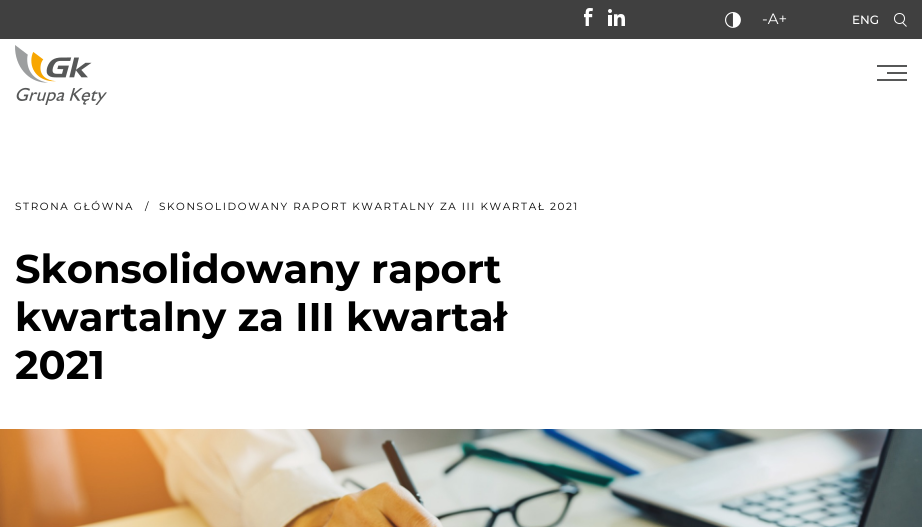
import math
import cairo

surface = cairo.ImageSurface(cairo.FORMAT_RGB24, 922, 527)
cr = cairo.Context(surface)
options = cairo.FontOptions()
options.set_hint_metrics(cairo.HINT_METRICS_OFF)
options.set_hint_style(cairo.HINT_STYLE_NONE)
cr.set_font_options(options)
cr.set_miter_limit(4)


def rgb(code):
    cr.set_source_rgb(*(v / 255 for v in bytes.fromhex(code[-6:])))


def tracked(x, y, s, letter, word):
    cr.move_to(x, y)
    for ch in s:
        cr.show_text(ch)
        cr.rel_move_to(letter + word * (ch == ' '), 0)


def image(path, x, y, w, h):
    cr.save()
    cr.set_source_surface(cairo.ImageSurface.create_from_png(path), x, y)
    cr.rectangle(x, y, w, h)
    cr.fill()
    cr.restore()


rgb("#ffffff")
cr.paint()
rgb("#404040")
cr.rectangle(0, 0, 922, 39)
cr.fill()
image("img/1.png", 584, 8, 9, 18)
image("img/2.png", 608, 9, 17, 17)
image("img/3.png", 725, 12, 16, 16)
cr.arc(899.5, 18.5, 5, 0, 2 * math.pi)
rgb("#ffffff")
cr.set_line_width(1)
cr.stroke()
cr.new_path()
cr.move_to(902.5, 22.5)
cr.line_to(906.5, 26.5)
cr.stroke()
image("img/4.png", 15, 45, 92, 60)
for x, y, w, h, color in [
    (877, 65, 30, 2, "#565757"),
    (887, 72, 20, 2, "#565757"),
    (877, 79, 30, 2, "#565757"),
]:
    rgb(color)
    cr.rectangle(x, y, w, h)
    cr.fill()
image("img/5.png", 0, 429, 922, 98)
cr.select_font_face("Montserrat")
cr.set_font_size(15)
rgb("#ffffff")
cr.move_to(762, 24)
cr.show_text("-A+")
cr.select_font_face("Montserrat Medium")
cr.set_font_size(12)
cr.move_to(852, 24)
cr.show_text("ENG")
cr.select_font_face("Montserrat")
cr.set_font_size(10.4)
rgb("#000000")
for x, y, s in [
    (15, 210, "STRONA GŁÓWNA"),
    (145, 210, "/"),
    (159, 210, "SKONSOLIDOWANY RAPORT KWARTALNY ZA III KWARTAŁ 2021"),
]:
    tracked(x, y, s, 1.65, 0)
cr.select_font_face("Montserrat", cairo.FONT_SLANT_NORMAL, cairo.FONT_WEIGHT_BOLD)
cr.set_font_size(40)
for x, y, s in [
    (15, 283, "Skonsolidowany raport"),
    (15, 331, "kwartalny za III kwartał"),
    (15, 379, "2021"),
]:
    cr.move_to(x, y)
    cr.show_text(s)
surface.write_to_png("page.png")
